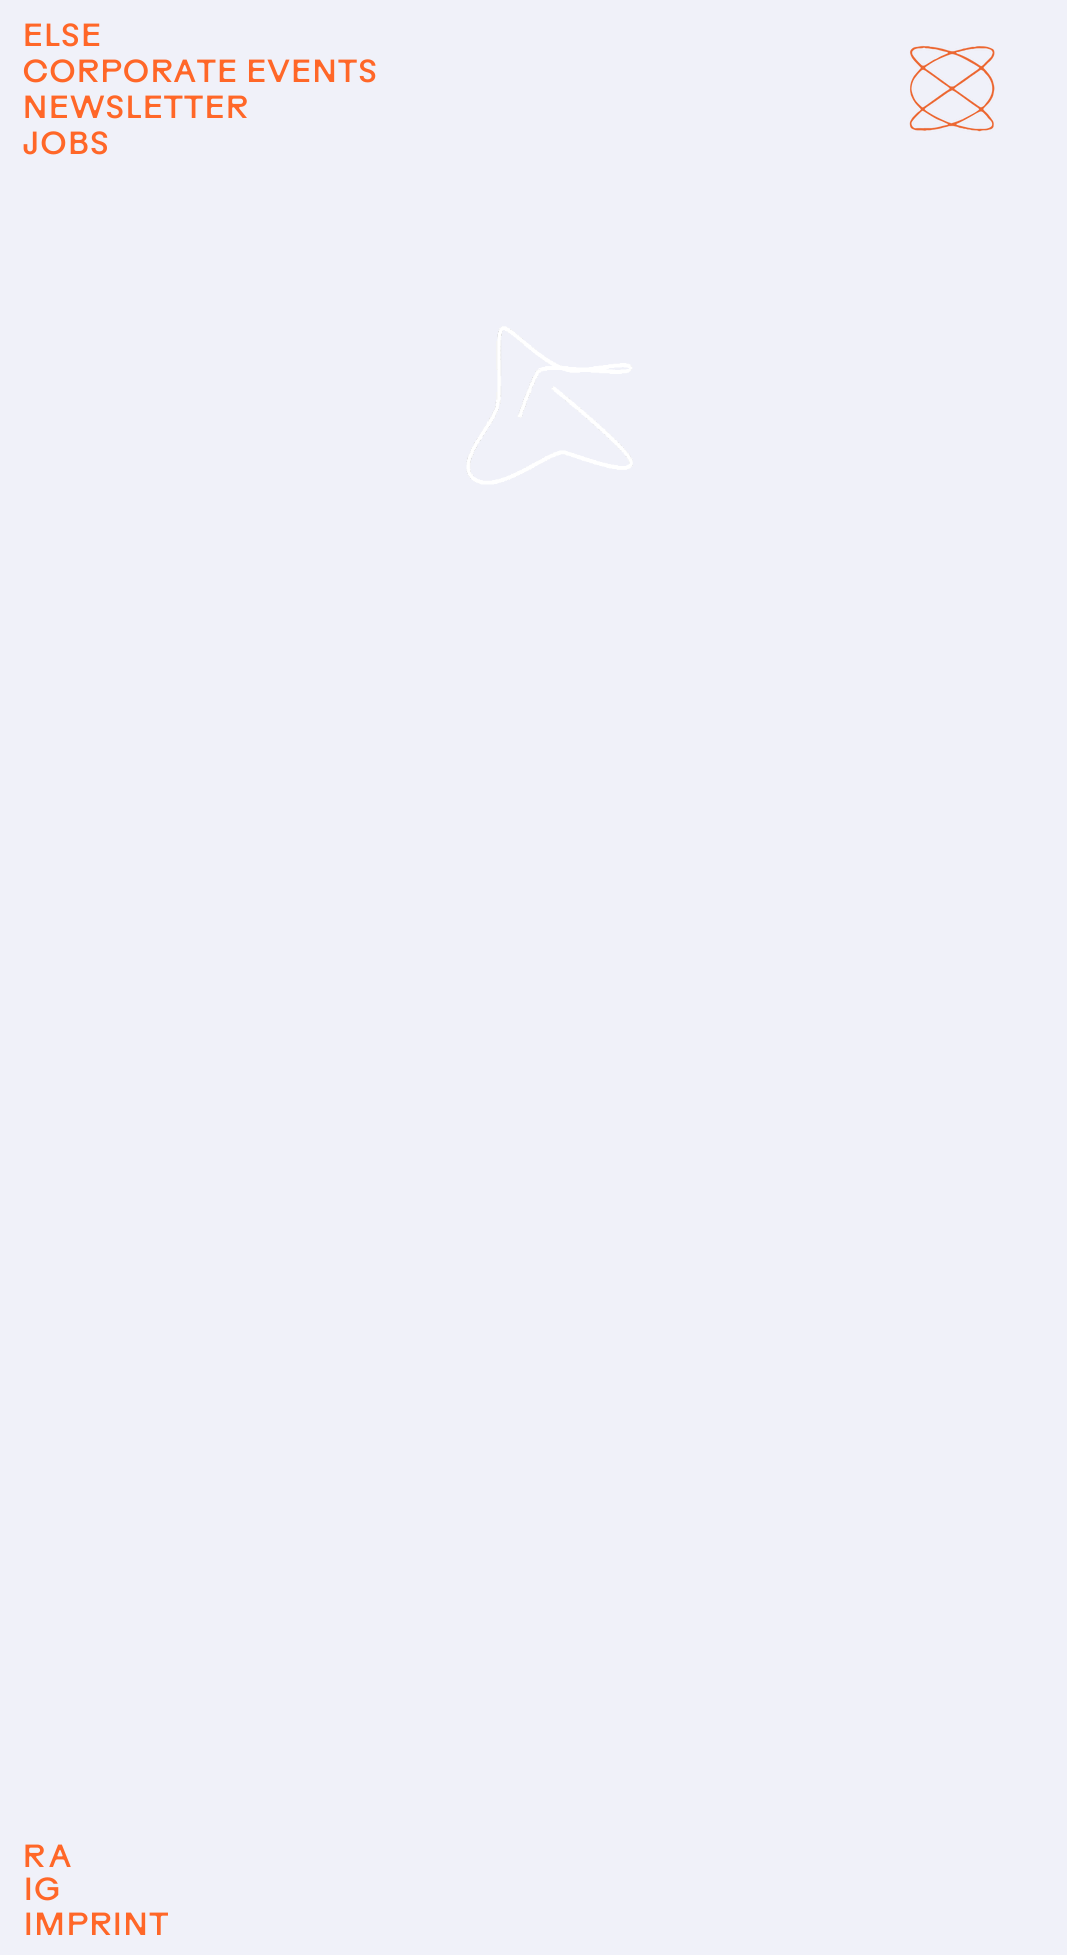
import math
import cairo

surface = cairo.ImageSurface(cairo.FORMAT_RGB24, 1067, 1955)
cr = cairo.Context(surface)
options = cairo.FontOptions()
options.set_hint_metrics(cairo.HINT_METRICS_OFF)
options.set_hint_style(cairo.HINT_STYLE_NONE)
cr.set_font_options(options)
cr.set_miter_limit(4)


def rgb(code):
    cr.set_source_rgb(*(v / 255 for v in bytes.fromhex(code[-6:])))


def tracked(x, y, s, letter, word):
    cr.move_to(x, y)
    for ch in s:
        cr.show_text(ch)
        cr.rel_move_to(letter + word * (ch == ' '), 0)


def image(path, x, y, w, h):
    cr.save()
    cr.set_source_surface(cairo.ImageSurface.create_from_png(path), x, y)
    cr.rectangle(x, y, w, h)
    cr.fill()
    cr.restore()


rgb("#f0f1f9")
cr.paint()
image("img/1.png", 909, 45, 86, 87)
image("img/2.png", 466, 326, 167, 159)
cr.select_font_face("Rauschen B")
cr.set_font_size(32)
rgb("#ff6728")
for x, y, s in [
    (22, 46, "ELSE"),
    (22, 82, "CORPORATE EVENTS"),
    (22, 118, "NEWSLETTER"),
    (22, 154, "JOBS"),
]:
    cr.move_to(x, y)
    cr.show_text(s)
tracked(22, 1867, "RA", 3, 0)
cr.move_to(23, 1900)
cr.show_text("IG")
cr.move_to(23, 1935)
cr.show_text("IMPRINT")
surface.write_to_png("page.png")
